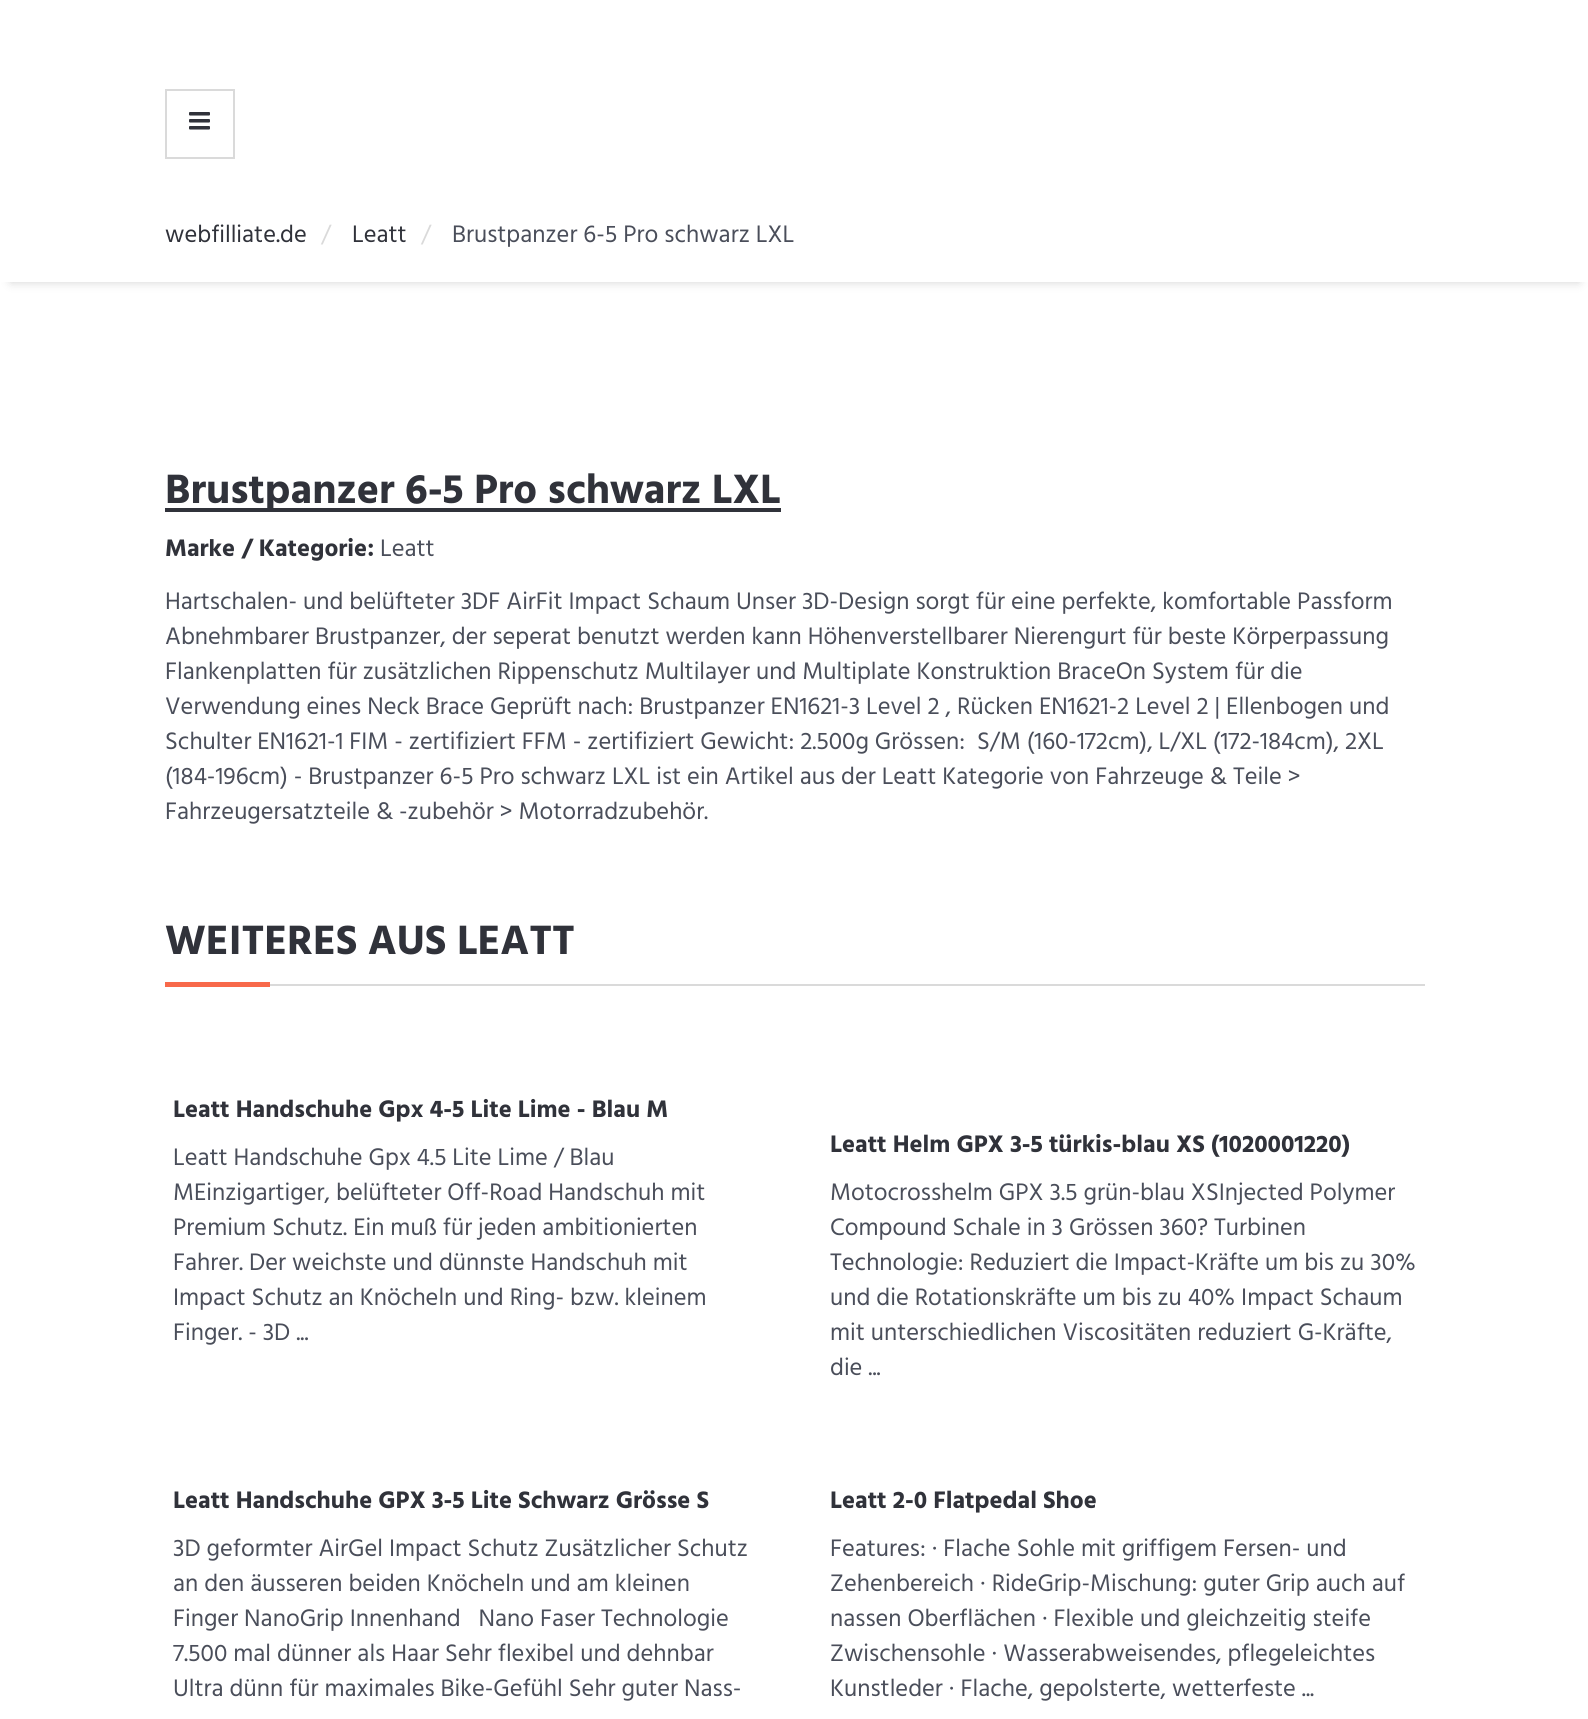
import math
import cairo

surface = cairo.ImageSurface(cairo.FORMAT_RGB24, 1588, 1719)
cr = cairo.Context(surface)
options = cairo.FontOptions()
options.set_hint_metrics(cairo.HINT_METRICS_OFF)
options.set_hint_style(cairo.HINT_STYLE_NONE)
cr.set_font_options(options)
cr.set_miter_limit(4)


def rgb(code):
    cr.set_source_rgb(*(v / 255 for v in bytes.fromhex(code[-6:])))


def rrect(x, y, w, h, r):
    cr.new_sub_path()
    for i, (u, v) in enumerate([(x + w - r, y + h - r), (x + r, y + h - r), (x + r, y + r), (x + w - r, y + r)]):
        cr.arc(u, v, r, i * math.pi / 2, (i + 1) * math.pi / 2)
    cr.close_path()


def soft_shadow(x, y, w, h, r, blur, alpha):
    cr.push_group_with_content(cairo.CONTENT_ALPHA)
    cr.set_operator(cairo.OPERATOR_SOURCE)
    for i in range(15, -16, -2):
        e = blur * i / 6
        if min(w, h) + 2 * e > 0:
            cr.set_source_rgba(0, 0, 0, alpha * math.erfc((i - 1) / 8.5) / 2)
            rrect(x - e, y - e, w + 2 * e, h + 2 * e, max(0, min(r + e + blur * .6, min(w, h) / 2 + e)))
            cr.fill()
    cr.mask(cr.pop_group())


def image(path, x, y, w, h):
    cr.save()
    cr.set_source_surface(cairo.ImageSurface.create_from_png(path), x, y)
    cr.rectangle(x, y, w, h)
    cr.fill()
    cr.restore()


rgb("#ffffff")
cr.paint()
cr.rectangle(166, 90, 68, 68)
rgb("#dadada")
cr.stroke()
image("img/1.png", 189, 112, 21, 18)
cr.save()
cr.set_fill_rule(cairo.FILL_RULE_EVEN_ODD)
cr.new_path()
cr.move_to(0, 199)
cr.line_to(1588, 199)
cr.line_to(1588, 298)
cr.line_to(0, 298)
cr.close_path()
cr.move_to(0, 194)
cr.line_to(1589, 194)
cr.line_to(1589, 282)
cr.line_to(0, 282)
cr.close_path()
cr.clip()
rgb("#000000")
soft_shadow(11, 215, 1568, 67, 0, 5, 0.18)
cr.restore()
for x, y, w, h, color in [
    (165, 508, 616, 4, "#30323a"),
    (270, 984, 1155, 2, "#dadada"),
    (165, 982, 105, 5, "#f8694a"),
]:
    rgb(color)
    cr.rectangle(x, y, w, h)
    cr.fill()
cr.select_font_face("Hind")
cr.set_font_size(24.5)
rgb("#30323a")
cr.move_to(165, 242)
cr.show_text("webfilliate.de")
rgb("#dadada")
cr.move_to(321, 242)
cr.show_text("/")
rgb("#30323a")
cr.move_to(352, 242)
cr.show_text("Leatt")
rgb("#dadada")
cr.move_to(421, 242)
cr.show_text("/")
rgb("#4a4e5a")
cr.move_to(452, 242)
cr.show_text("Brustpanzer 6-5 Pro schwarz LXL")
cr.select_font_face("Hind", cairo.FONT_SLANT_NORMAL, cairo.FONT_WEIGHT_BOLD)
cr.set_font_size(42)
rgb("#30323a")
cr.move_to(165, 503)
cr.show_text("Brustpanzer 6-5 Pro schwarz LXL")
cr.set_font_size(24.5)
cr.move_to(165, 556)
cr.show_text("Marke / Kategorie:")
cr.select_font_face("Hind")
rgb("#4a4e5a")
for x, y, s in [
    (380, 556, "Leatt"),
    (165, 609, "Hartschalen- und belüfteter 3DF AirFit Impact Schaum Unser 3D-Design sorgt für eine perfekte, komfortable Passform"),
    (165, 644, "Abnehmbarer Brustpanzer, der seperat benutzt werden kann Höhenverstellbarer Nierengurt für beste Körperpassung"),
    (165, 679, "Flankenplatten für zusätzlichen Rippenschutz Multilayer und Multiplate Konstruktion BraceOn System für die"),
    (165, 714, "Verwendung eines Neck Brace Geprüft nach: Brustpanzer EN1621-3 Level 2 , Rücken EN1621-2 Level 2 | Ellenbogen und"),
    (165, 749, "Schulter EN1621-1 FIM - zertifiziert FFM - zertifiziert Gewicht: 2.500g Grössen:  S/M (160-172cm), L/XL (172-184cm), 2XL"),
    (165, 784, "(184-196cm) - Brustpanzer 6-5 Pro schwarz LXL ist ein Artikel aus der Leatt Kategorie von Fahrzeuge & Teile >"),
    (165, 819, "Fahrzeugersatzteile & -zubehör > Motorradzubehör."),
]:
    cr.move_to(x, y)
    cr.show_text(s)
cr.select_font_face("Hind", cairo.FONT_SLANT_NORMAL, cairo.FONT_WEIGHT_BOLD)
cr.set_font_size(42)
rgb("#30323a")
cr.move_to(165, 954)
cr.show_text("WEITERES AUS LEATT")
cr.set_font_size(24.5)
cr.move_to(173, 1117)
cr.show_text("Leatt Handschuhe Gpx 4-5 Lite Lime - Blau M")
cr.select_font_face("Hind")
rgb("#4a4e5a")
for x, y, s in [
    (173, 1165, "Leatt Handschuhe Gpx 4.5 Lite Lime / Blau"),
    (173, 1200, "MEinzigartiger, belüfteter Off-Road Handschuh mit"),
    (173, 1235, "Premium Schutz. Ein muß für jeden ambitionierten"),
    (173, 1270, "Fahrer. Der weichste und dünnste Handschuh mit"),
    (173, 1305, "Impact Schutz an Knöcheln und Ring- bzw. kleinem"),
    (173, 1340, "Finger. - 3D ..."),
]:
    cr.move_to(x, y)
    cr.show_text(s)
cr.select_font_face("Hind", cairo.FONT_SLANT_NORMAL, cairo.FONT_WEIGHT_BOLD)
rgb("#30323a")
cr.move_to(830, 1152)
cr.show_text("Leatt Helm GPX 3-5 türkis-blau XS (1020001220)")
cr.select_font_face("Hind")
rgb("#4a4e5a")
for x, y, s in [
    (830, 1200, "Motocrosshelm GPX 3.5 grün-blau XSInjected Polymer"),
    (830, 1235, "Compound Schale in 3 Grössen 360? Turbinen"),
    (830, 1270, "Technologie: Reduziert die Impact-Kräfte um bis zu 30%"),
    (830, 1305, "und die Rotationskräfte um bis zu 40% Impact Schaum"),
    (830, 1340, "mit unterschiedlichen Viscositäten reduziert G-Kräfte,"),
    (830, 1375, "die ..."),
]:
    cr.move_to(x, y)
    cr.show_text(s)
cr.select_font_face("Hind", cairo.FONT_SLANT_NORMAL, cairo.FONT_WEIGHT_BOLD)
rgb("#30323a")
cr.move_to(173, 1508)
cr.show_text("Leatt Handschuhe GPX 3-5 Lite Schwarz Grösse S")
cr.select_font_face("Hind")
rgb("#4a4e5a")
for x, y, s in [
    (173, 1556, "3D geformter AirGel Impact Schutz Zusätzlicher Schutz"),
    (173, 1591, "an den äusseren beiden Knöcheln und am kleinen"),
    (173, 1626, "Finger NanoGrip Innenhand   Nano Faser Technologie"),
    (173, 1661, "7.500 mal dünner als Haar Sehr flexibel und dehnbar"),
    (173, 1696, "Ultra dünn für maximales Bike-Gefühl Sehr guter Nass-"),
]:
    cr.move_to(x, y)
    cr.show_text(s)
cr.select_font_face("Hind", cairo.FONT_SLANT_NORMAL, cairo.FONT_WEIGHT_BOLD)
rgb("#30323a")
cr.move_to(830, 1508)
cr.show_text("Leatt 2-0 Flatpedal Shoe")
cr.select_font_face("Hind")
rgb("#4a4e5a")
for x, y, s in [
    (830, 1556, "Features: · Flache Sohle mit griffigem Fersen- und"),
    (830, 1591, "Zehenbereich · RideGrip-Mischung: guter Grip auch auf"),
    (830, 1626, "nassen Oberflächen · Flexible und gleichzeitig steife"),
    (830, 1661, "Zwischensohle · Wasserabweisendes, pflegeleichtes"),
    (830, 1696, "Kunstleder · Flache, gepolsterte, wetterfeste ..."),
]:
    cr.move_to(x, y)
    cr.show_text(s)
surface.write_to_png("page.png")
